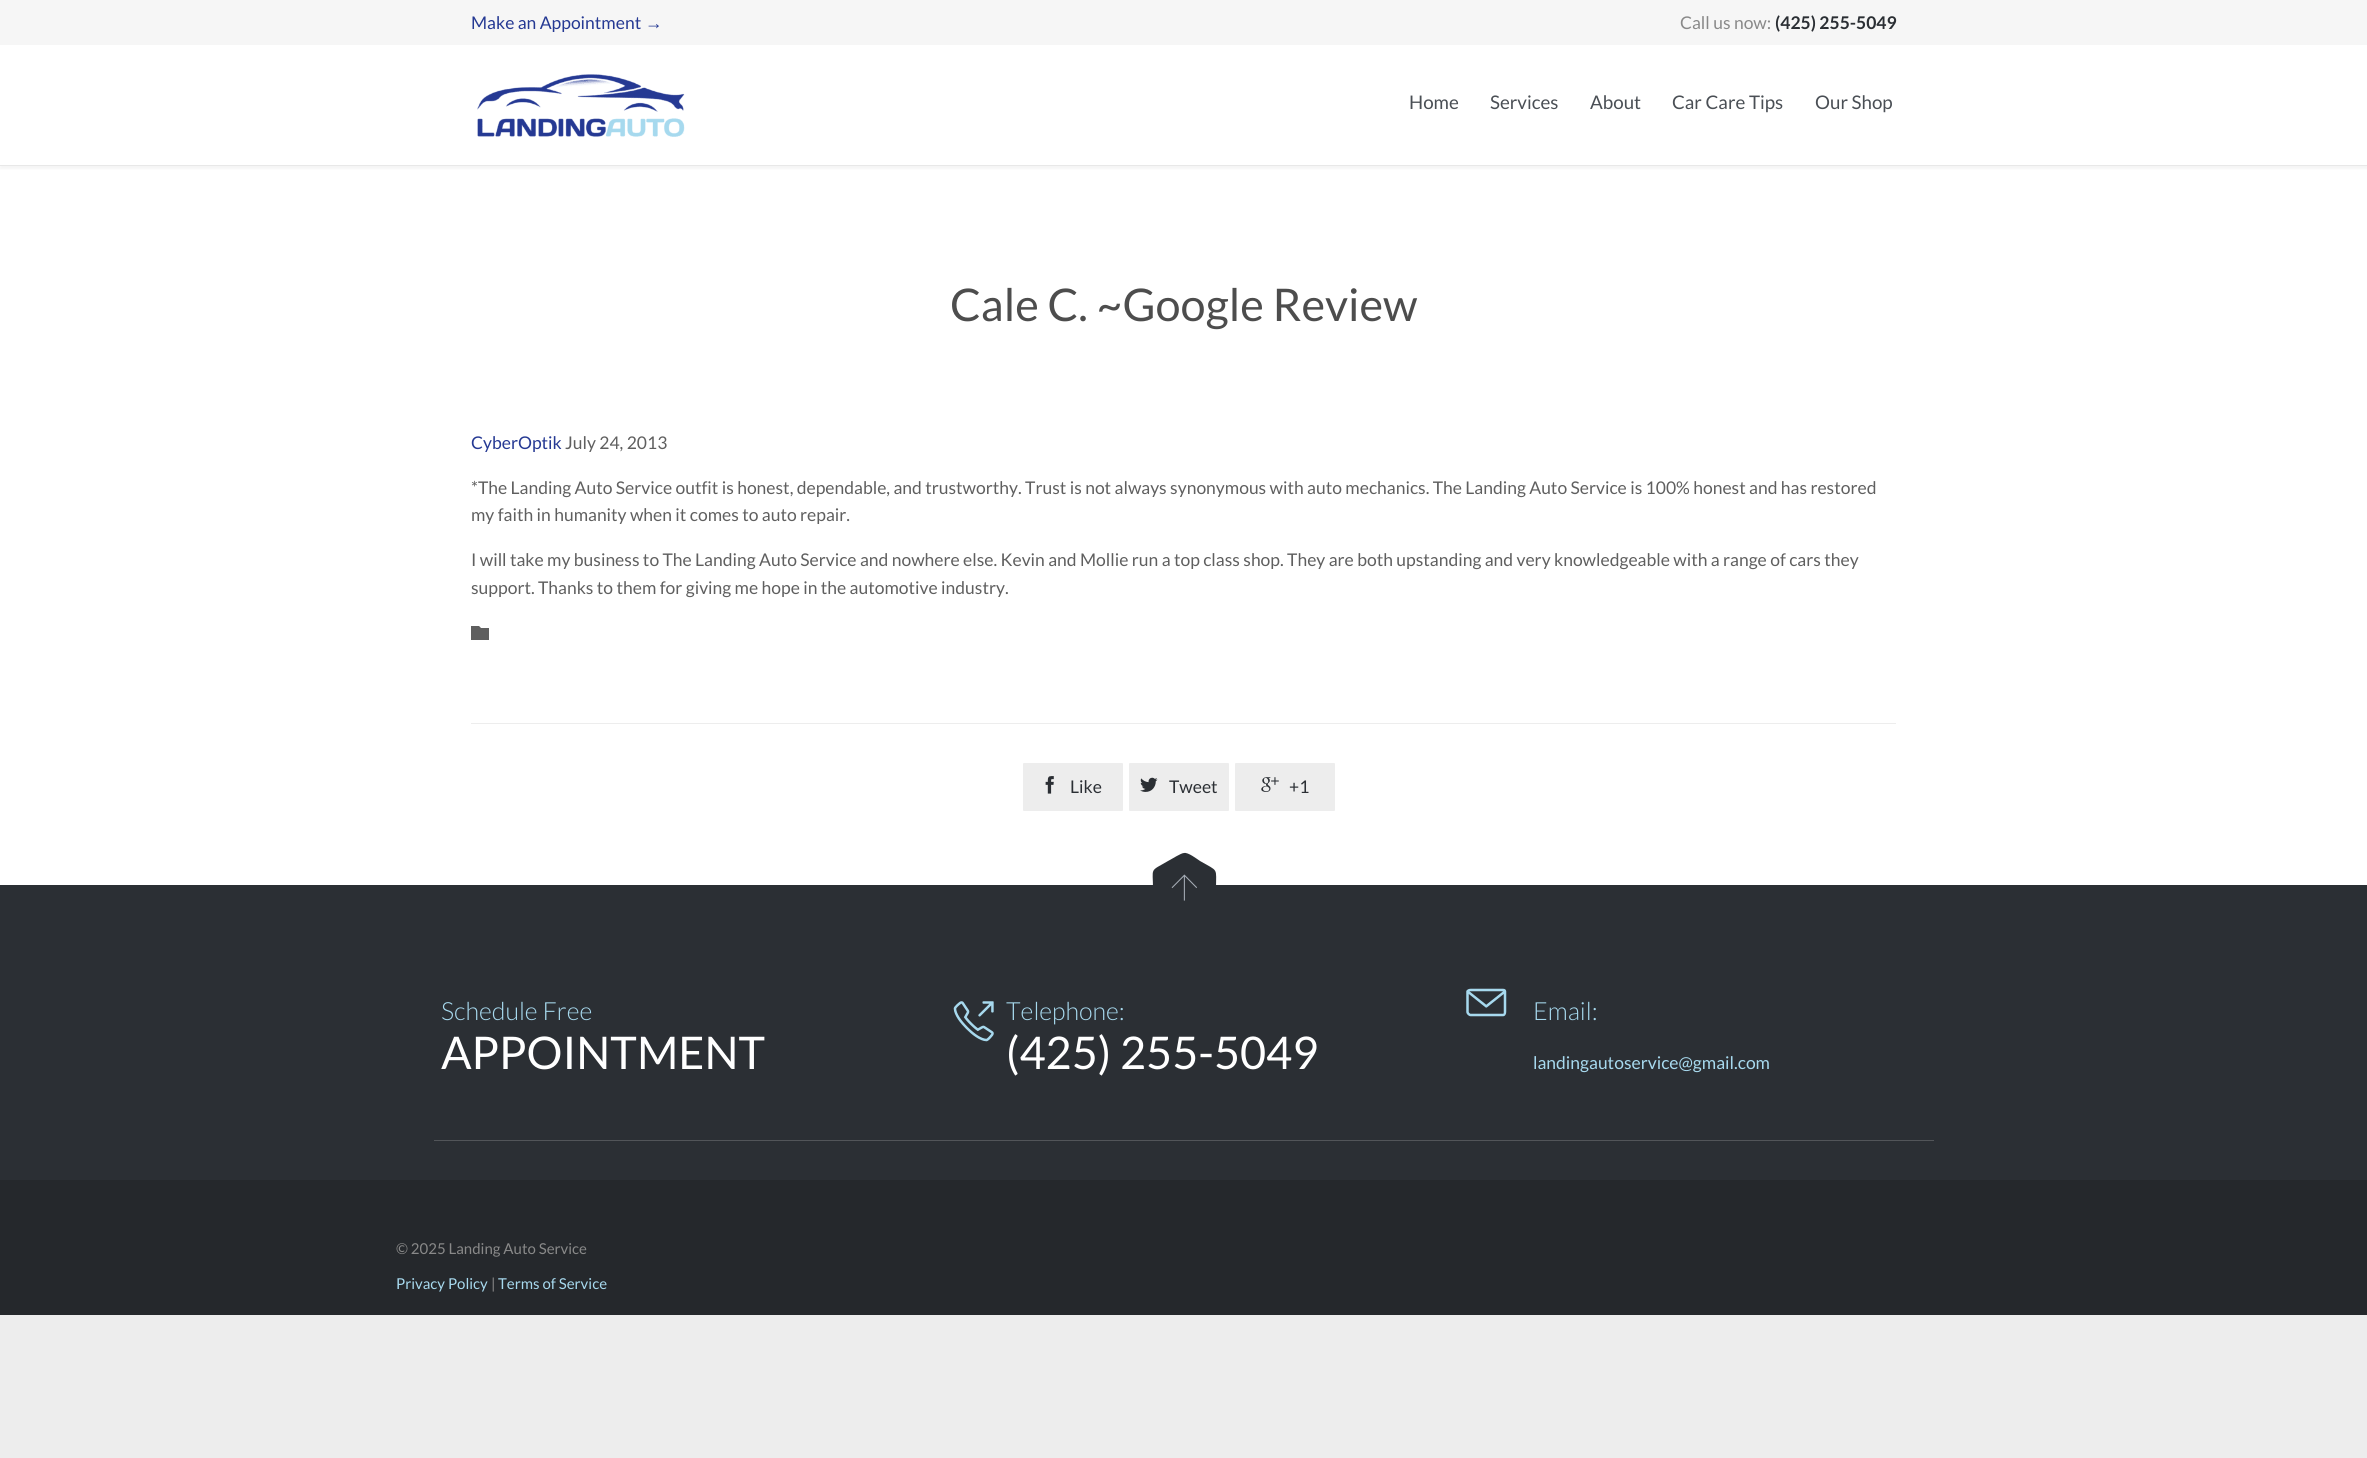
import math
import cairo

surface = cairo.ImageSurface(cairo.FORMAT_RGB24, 2367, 1458)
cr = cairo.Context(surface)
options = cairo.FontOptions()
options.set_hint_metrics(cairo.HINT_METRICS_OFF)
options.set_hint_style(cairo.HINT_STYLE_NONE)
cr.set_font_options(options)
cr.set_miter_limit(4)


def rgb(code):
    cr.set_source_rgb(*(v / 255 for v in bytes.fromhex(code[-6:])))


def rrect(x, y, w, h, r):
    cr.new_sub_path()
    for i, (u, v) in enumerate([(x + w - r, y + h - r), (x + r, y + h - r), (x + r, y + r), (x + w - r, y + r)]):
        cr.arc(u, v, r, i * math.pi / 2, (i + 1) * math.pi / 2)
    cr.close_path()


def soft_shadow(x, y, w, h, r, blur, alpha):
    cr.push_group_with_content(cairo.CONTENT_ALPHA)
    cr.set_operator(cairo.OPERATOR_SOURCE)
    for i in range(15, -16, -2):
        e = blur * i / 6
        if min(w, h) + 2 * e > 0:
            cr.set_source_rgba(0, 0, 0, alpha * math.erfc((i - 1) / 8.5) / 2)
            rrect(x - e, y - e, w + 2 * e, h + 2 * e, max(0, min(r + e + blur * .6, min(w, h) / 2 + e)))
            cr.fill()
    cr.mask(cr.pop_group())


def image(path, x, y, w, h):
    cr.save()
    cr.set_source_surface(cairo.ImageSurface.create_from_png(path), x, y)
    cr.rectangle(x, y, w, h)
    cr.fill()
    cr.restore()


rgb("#ededed")
cr.paint()
rgb("#ffffff")
cr.rectangle(0, 166, 2367, 719)
cr.fill()
rgb("#000000")
soft_shadow(0, 3, 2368, 166, 0, 1, 0.04)
for x, y, w, h, color in [
    (0, 45, 2367, 120, "#ffffff"),
    (0, 165, 2367, 1, "#e8e8e8"),
    (0, 0, 2367, 45, "#f6f6f6"),
]:
    rgb(color)
    cr.rectangle(x, y, w, h)
    cr.fill()
image("img/1.png", 477, 74, 208, 63)
rgb("#5f5f5f")
cr.new_path()
cr.move_to(479, 626)
cr.line_to(481, 628)
cr.line_to(489, 628)
cr.line_to(489, 640)
cr.line_to(471, 640)
cr.line_to(471, 626)
cr.close_path()
cr.fill()
rgb("#ededed")
cr.rectangle(471, 723, 1425, 1)
cr.fill()
rrect(1023, 763, 100, 48, 1)
cr.fill()
image("img/2.png", 1045, 776, 9, 18)
rrect(1129, 763, 100, 48, 1)
cr.fill()
image("img/3.png", 1140, 777, 18, 15)
rrect(1235, 763, 100, 48, 1)
cr.fill()
image("img/4.png", 1261, 777, 18, 15)
rgb("#2b2f34")
cr.rectangle(0, 885, 2367, 295)
cr.fill()
cr.new_path()
cr.move_to(1184, 926)
cr.curve_to(1182, 926, 1179, 924, 1177, 923)
cr.line_to(1169, 917)
cr.curve_to(1149, 906, 1153, 912, 1153, 889)
cr.curve_to(1153, 867, 1149, 872, 1168, 861)
cr.curve_to(1172, 859, 1181, 853, 1184, 853)
cr.curve_to(1188, 852, 1197, 859, 1200, 861)
cr.curve_to(1219, 872, 1216, 867, 1216, 889)
cr.curve_to(1216, 912, 1219, 906, 1200, 917)
cr.line_to(1191, 923)
cr.curve_to(1190, 924, 1187, 926, 1184, 926)
cr.close_path()
cr.fill()
image("img/5.png", 1171, 874, 26, 27)
image("img/6.png", 953, 1001, 41, 41)
image("img/7.png", 1466, 988, 41, 29)
rgb("#525559")
cr.rectangle(434, 1140, 1500, 1)
cr.fill()
rgb("#25282c")
cr.rectangle(0, 1180, 2367, 135)
cr.fill()
cr.select_font_face("Lato")
cr.set_font_size(17.5)
rgb("#253993")
cr.move_to(471, 29)
cr.show_text("Make an Appointment")
cr.select_font_face("Liberation Serif")
cr.move_to(645, 29)
cr.show_text("→")
cr.select_font_face("Lato")
rgb("#898989")
cr.move_to(1680, 29)
cr.show_text("Call us now:")
cr.select_font_face("Lato", cairo.FONT_SLANT_NORMAL, cairo.FONT_WEIGHT_BOLD)
rgb("#2b2f34")
cr.move_to(1775, 29)
cr.show_text("(425) 255-5049")
cr.select_font_face("Lato")
cr.set_font_size(18.75)
rgb("#4a4f55")
for x, y, s in [
    (1409, 109, "Home"),
    (1490, 109, "Services"),
    (1590, 109, "About"),
    (1672, 109, "Car Care Tips"),
    (1815, 109, "Our Shop"),
]:
    cr.move_to(x, y)
    cr.show_text(s)
cr.set_font_size(45)
rgb("#4d4d4d")
cr.move_to(950, 321)
cr.show_text("Cale C. ~Google Review")
cr.set_font_size(17.5)
rgb("#253993")
cr.move_to(471, 449)
cr.show_text("CyberOptik")
rgb("#5f5f5f")
for x, y, s in [
    (565, 449, "July 24, 2013"),
    (471, 494, "*The Landing Auto Service outfit is honest, dependable, and trustworthy. Trust is not always synonymous with auto mechanics. The Landing Auto Service is 100% honest and has restored"),
    (471, 521, "my faith in humanity when it comes to auto repair."),
    (471, 566, "I will take my business to The Landing Auto Service and nowhere else. Kevin and Mollie run a top class shop. They are both upstanding and very knowledgeable with a range of cars they"),
    (471, 594, "support. Thanks to them for giving me hope in the automotive industry."),
]:
    cr.move_to(x, y)
    cr.show_text(s)
rgb("#2b2f34")
for x, y, s in [
    (1070, 793, "Like"),
    (1169, 793, "Tweet"),
    (1289, 793, "+1"),
]:
    cr.move_to(x, y)
    cr.show_text(s)
cr.select_font_face("Lato Light")
cr.set_font_size(25)
rgb("#a7d9ee")
cr.move_to(441, 1020)
cr.show_text("Schedule Free")
cr.select_font_face("Lato")
cr.set_font_size(45)
rgb("#ffffff")
cr.move_to(441, 1069)
cr.show_text("APPOINTMENT")
cr.select_font_face("Lato Light")
cr.set_font_size(25)
rgb("#a7d9ee")
cr.move_to(1006, 1020)
cr.show_text("Telephone:")
cr.select_font_face("Lato")
cr.set_font_size(45)
rgb("#ffffff")
cr.move_to(1006, 1069)
cr.show_text("(425) 255-5049")
cr.select_font_face("Lato Light")
cr.set_font_size(25)
rgb("#a7d9ee")
cr.move_to(1533, 1020)
cr.show_text("Email:")
cr.select_font_face("Lato")
cr.set_font_size(17.5)
cr.move_to(1533, 1069)
cr.show_text("landingautoservice@gmail.com")
cr.set_font_size(15)
rgb("#898989")
cr.move_to(396, 1254)
cr.show_text("© 2025 Landing Auto Service")
rgb("#a7d9ee")
cr.move_to(396, 1289)
cr.show_text("Privacy Policy")
rgb("#898989")
cr.move_to(491, 1289)
cr.show_text("|")
rgb("#a7d9ee")
cr.move_to(498, 1289)
cr.show_text("Terms of Service")
surface.write_to_png("page.png")
